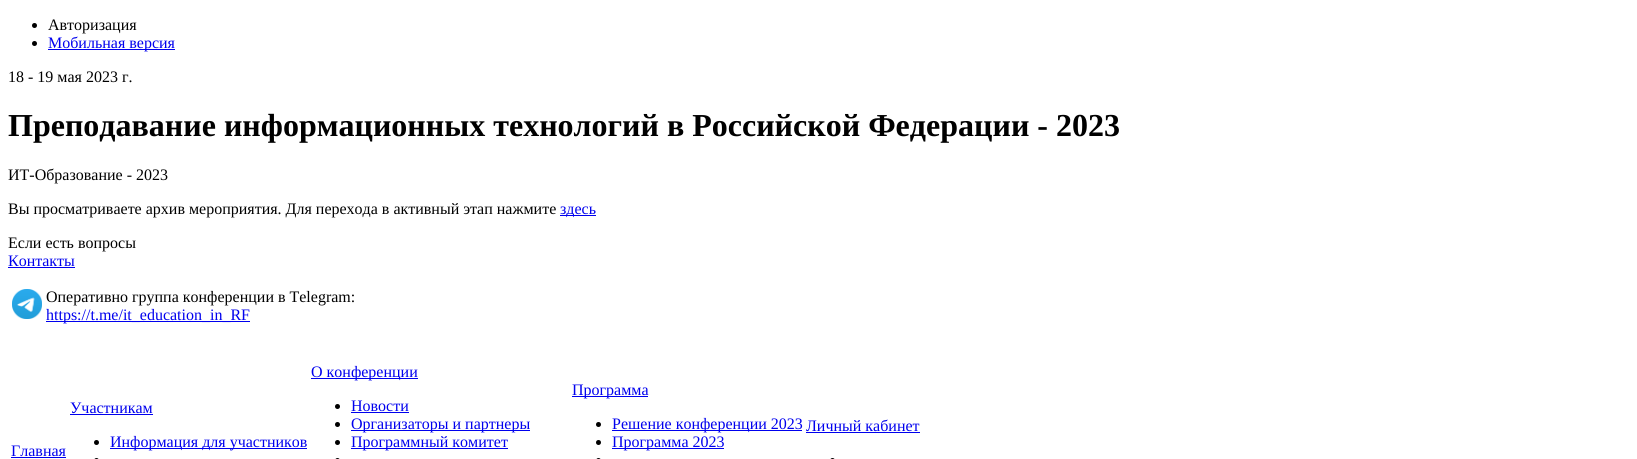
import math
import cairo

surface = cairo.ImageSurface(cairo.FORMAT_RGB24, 1637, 459)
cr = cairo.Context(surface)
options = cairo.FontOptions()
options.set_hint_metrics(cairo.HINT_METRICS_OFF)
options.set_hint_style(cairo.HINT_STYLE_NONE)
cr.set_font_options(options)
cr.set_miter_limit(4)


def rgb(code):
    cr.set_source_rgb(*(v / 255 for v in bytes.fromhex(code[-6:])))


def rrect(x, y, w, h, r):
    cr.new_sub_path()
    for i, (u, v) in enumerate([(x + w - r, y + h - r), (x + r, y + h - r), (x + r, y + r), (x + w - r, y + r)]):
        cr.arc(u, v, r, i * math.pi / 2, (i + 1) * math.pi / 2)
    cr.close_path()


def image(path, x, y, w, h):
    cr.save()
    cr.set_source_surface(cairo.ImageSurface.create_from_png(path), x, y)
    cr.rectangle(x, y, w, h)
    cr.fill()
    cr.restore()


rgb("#ffffff")
cr.paint()
rgb("#000000")
cr.arc(34.5, 25.5, 2.5, 0, 2 * math.pi)
cr.fill()
cr.arc(34.5, 43.5, 2.5, 0, 2 * math.pi)
cr.fill()
for x, y, w, h, color in [
    (48, 49, 127, 1, "#0000ee"),
    (560, 215, 36, 1, "#0000ee"),
    (8, 267, 67, 1, "#0000ee"),
]:
    rgb(color)
    cr.rectangle(x, y, w, h)
    cr.fill()
image("img/1.png", 12, 289, 30, 30)
cr.rectangle(46, 321, 204, 1)
cr.fill()
cr.rectangle(70, 414, 83, 1)
cr.fill()
rgb("#000000")
cr.arc(96.5, 442.5, 2.5, 0, 2 * math.pi)
cr.fill()
rgb("#0000ee")
cr.rectangle(110, 448, 197, 1)
cr.fill()
rgb("#000000")
rrect(94, 458, 5, 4, 2.5)
cr.fill()
rgb("#0000ee")
cr.rectangle(311, 378, 107, 1)
cr.fill()
rgb("#000000")
cr.arc(337.5, 406.5, 2.5, 0, 2 * math.pi)
cr.fill()
rgb("#0000ee")
cr.rectangle(351, 412, 58, 1)
cr.fill()
rgb("#000000")
cr.arc(337.5, 424.5, 2.5, 0, 2 * math.pi)
cr.fill()
rgb("#0000ee")
cr.rectangle(351, 430, 179, 1)
cr.fill()
rgb("#000000")
cr.arc(337.5, 442.5, 2.5, 0, 2 * math.pi)
cr.fill()
rgb("#0000ee")
cr.rectangle(351, 448, 157, 1)
cr.fill()
rgb("#000000")
rrect(335, 458, 5, 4, 2.5)
cr.fill()
rgb("#0000ee")
cr.rectangle(572, 396, 76, 1)
cr.fill()
rgb("#000000")
cr.arc(598.5, 424.5, 2.5, 0, 2 * math.pi)
cr.fill()
rgb("#0000ee")
cr.rectangle(612, 430, 190, 1)
cr.fill()
rgb("#000000")
cr.arc(598.5, 442.5, 2.5, 0, 2 * math.pi)
cr.fill()
rgb("#0000ee")
cr.rectangle(612, 448, 112, 1)
cr.fill()
rgb("#000000")
rrect(596, 458, 5, 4, 2.5)
cr.fill()
rgb("#0000ee")
cr.rectangle(806, 432, 114, 1)
cr.fill()
rgb("#000000")
rrect(830, 458, 5, 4, 2.5)
cr.fill()
rgb("#0000ee")
cr.rectangle(11, 457, 55, 1)
cr.fill()
cr.select_font_face("Liberation Serif")
cr.set_font_size(16)
rgb("#000000")
cr.move_to(48, 30)
cr.show_text("Авторизация")
rgb("#0000ee")
cr.move_to(48, 48)
cr.show_text("Мобильная версия")
rgb("#000000")
cr.move_to(8, 82)
cr.show_text("18 - 19 мая 2023 г.")
cr.select_font_face("Liberation Serif", cairo.FONT_SLANT_NORMAL, cairo.FONT_WEIGHT_BOLD)
cr.set_font_size(32)
cr.move_to(8, 136)
cr.show_text("Преподавание информационных технологий в Российской Федерации - 2023")
cr.select_font_face("Liberation Serif")
cr.set_font_size(16)
cr.move_to(8, 180)
cr.show_text("ИТ-Образование - 2023")
cr.move_to(8, 214)
cr.show_text("Вы просматриваете архив мероприятия. Для перехода в активный этап нажмите")
rgb("#0000ee")
cr.move_to(560, 214)
cr.show_text("здесь")
rgb("#000000")
cr.move_to(8, 248)
cr.show_text("Если есть вопросы")
rgb("#0000ee")
cr.move_to(8, 266)
cr.show_text("Контакты")
rgb("#000000")
cr.move_to(46, 302)
cr.show_text("Оперативно группа конференции в Telegram:")
rgb("#0000ee")
for x, y, s in [
    (46, 320, "https://t.me/it_education_in_RF"),
    (70, 413, "Участникам"),
    (110, 447, "Информация для участников"),
    (311, 377, "О конференции"),
    (351, 411, "Новости"),
    (351, 429, "Организаторы и партнеры"),
    (351, 447, "Программный комитет"),
    (572, 395, "Программа"),
    (612, 429, "Решение конференции 2023"),
    (612, 447, "Программа 2023"),
    (806, 431, "Личный кабинет"),
    (11, 456, "Главная"),
]:
    cr.move_to(x, y)
    cr.show_text(s)
surface.write_to_png("page.png")
